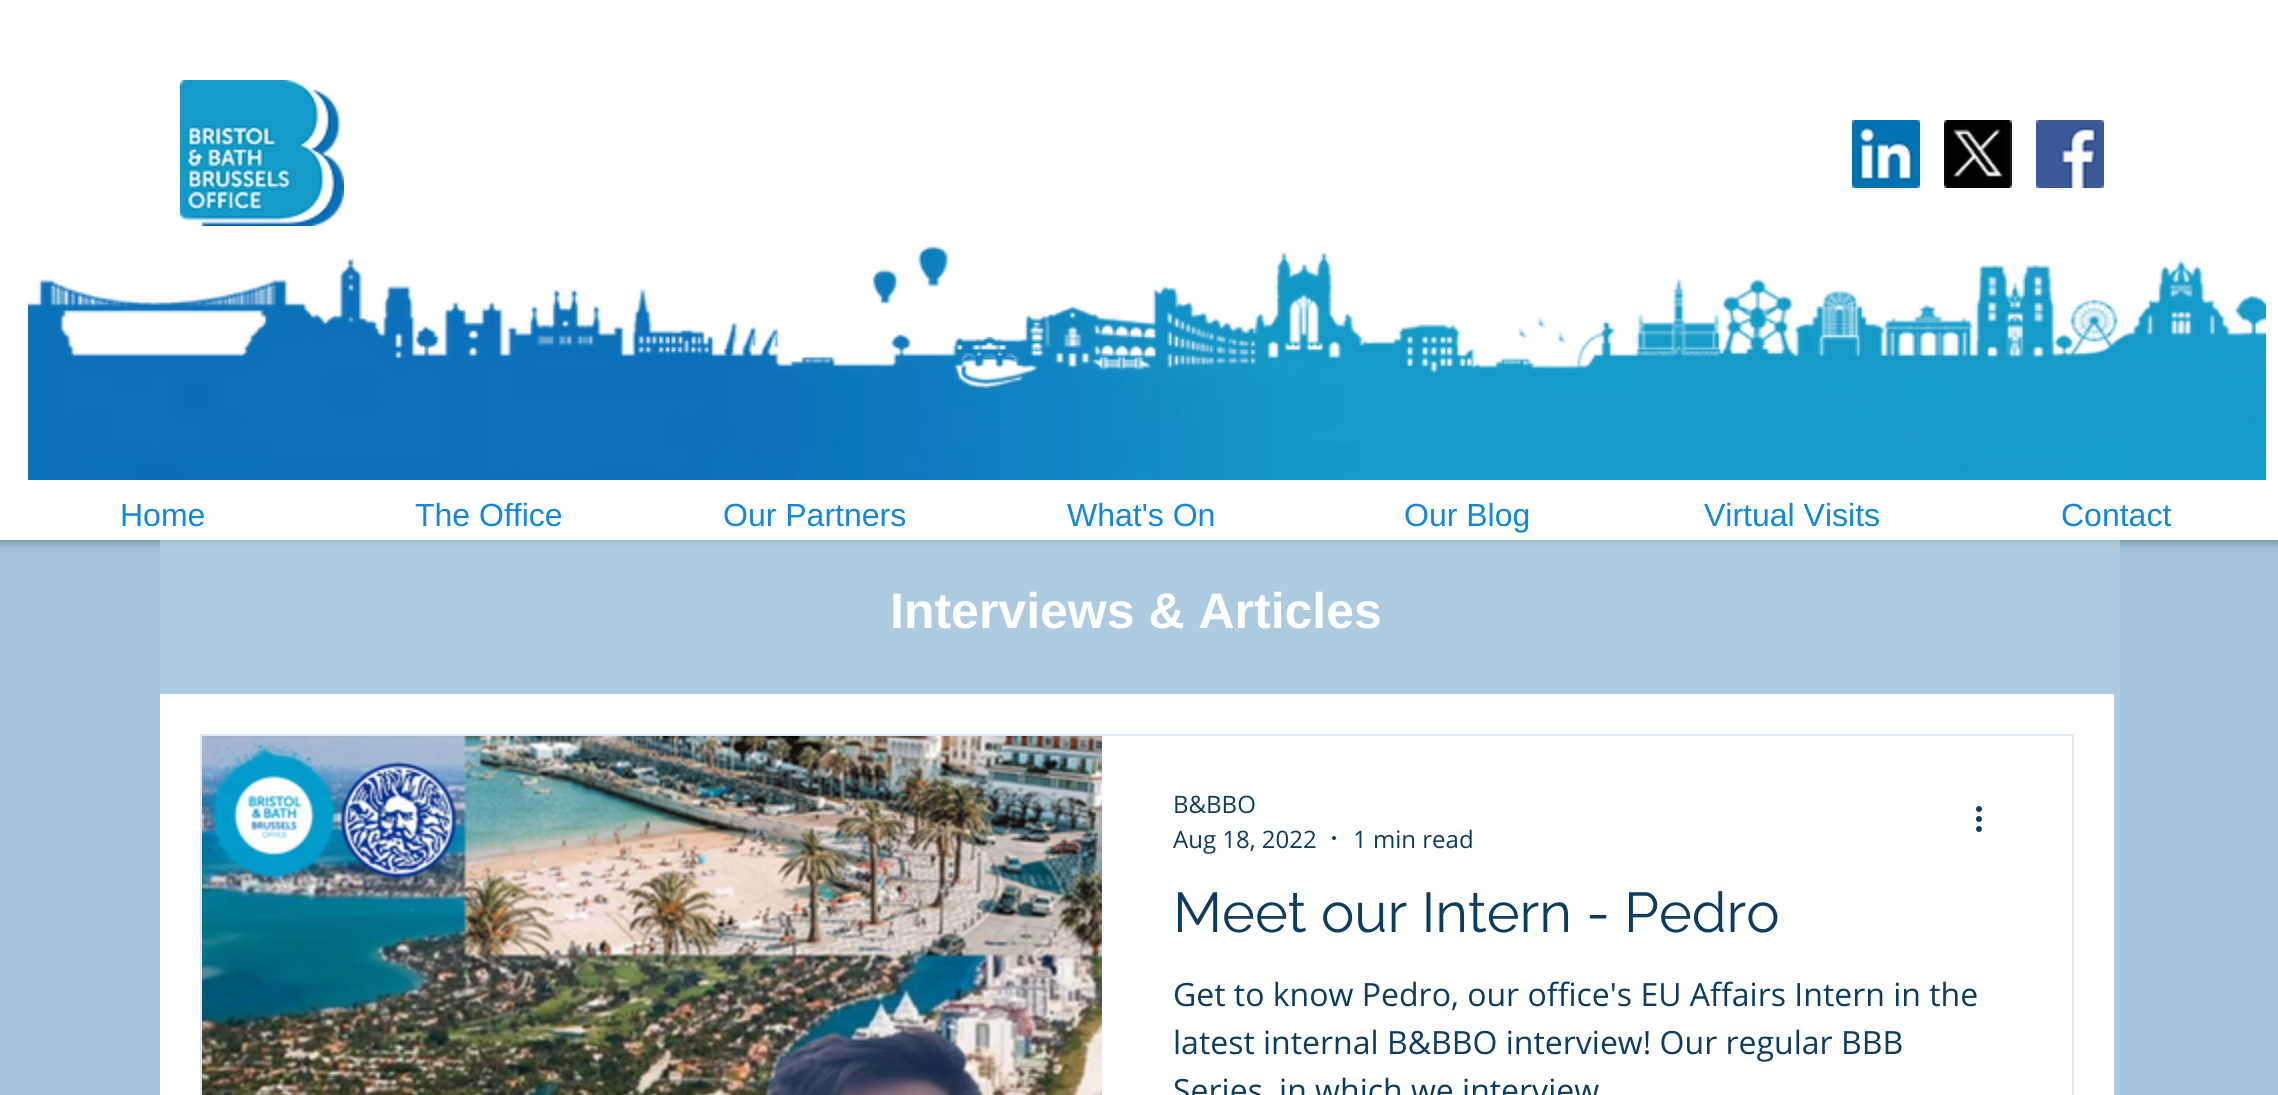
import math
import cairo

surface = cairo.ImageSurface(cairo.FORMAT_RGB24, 2278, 1095)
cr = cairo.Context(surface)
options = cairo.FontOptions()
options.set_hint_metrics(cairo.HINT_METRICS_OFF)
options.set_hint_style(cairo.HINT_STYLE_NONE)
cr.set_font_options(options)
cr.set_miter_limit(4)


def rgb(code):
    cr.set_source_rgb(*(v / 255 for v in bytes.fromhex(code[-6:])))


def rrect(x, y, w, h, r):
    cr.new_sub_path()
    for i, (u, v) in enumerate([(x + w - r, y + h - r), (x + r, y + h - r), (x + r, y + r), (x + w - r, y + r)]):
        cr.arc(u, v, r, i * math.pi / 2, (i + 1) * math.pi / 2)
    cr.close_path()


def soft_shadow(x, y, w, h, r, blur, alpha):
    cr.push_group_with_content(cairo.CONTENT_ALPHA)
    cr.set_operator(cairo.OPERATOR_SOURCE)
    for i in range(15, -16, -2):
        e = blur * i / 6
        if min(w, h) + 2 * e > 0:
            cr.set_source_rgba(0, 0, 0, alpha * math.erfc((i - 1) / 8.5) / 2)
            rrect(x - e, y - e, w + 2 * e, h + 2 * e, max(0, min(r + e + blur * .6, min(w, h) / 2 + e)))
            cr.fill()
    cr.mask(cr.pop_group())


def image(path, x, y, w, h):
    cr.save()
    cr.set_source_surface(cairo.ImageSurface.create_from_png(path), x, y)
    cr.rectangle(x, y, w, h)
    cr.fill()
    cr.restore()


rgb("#a0c2db")
cr.paint()
rgb("#375265")
soft_shadow(0, 0, 2278, 540, 0, 5, 0.7)
rgb("#ffffff")
cr.rectangle(0, 0, 2278, 540)
cr.fill()
image("img/1.png", 180, 80, 164, 146)
image("img/2.png", 1852, 120, 68, 68)
image("img/3.png", 1944, 120, 68, 68)
image("img/4.png", 2036, 120, 68, 68)
image("img/5.png", 28, 245, 2238, 235)
cr.set_source_rgba(0.718, 0.824, 0.898, 0.6)
cr.rectangle(160, 540, 1960, 555)
cr.fill()
rgb("#ffffff")
cr.rectangle(160, 694, 1954, 401)
cr.fill()
cr.rectangle(201, 735, 1872, 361)
rgb("#dde8f0")
cr.stroke()
image("img/6.png", 202, 736, 900, 359)
rgb("#0c3c60")
cr.arc(1334, 838, 2, 0, 2 * math.pi)
cr.fill()
image("img/7.png", 1976, 806, 6, 26)
cr.select_font_face("Liberation Sans")
cr.set_font_size(32)
rgb("#1387da")
for x, y, s in [
    (120, 526, "Home"),
    (415, 526, "The Office"),
    (723, 526, "Our Partners"),
    (1067, 526, "What's On"),
    (1404, 526, "Our Blog"),
    (1704, 526, "Virtual Visits"),
    (2061, 526, "Contact"),
]:
    cr.move_to(x, y)
    cr.show_text(s)
cr.select_font_face("Liberation Sans", cairo.FONT_SLANT_NORMAL, cairo.FONT_WEIGHT_BOLD)
cr.set_font_size(50)
rgb("#ffffff")
cr.move_to(890, 628)
cr.show_text("Interviews & Articles")
cr.select_font_face("Open Sans")
cr.set_font_size(24)
rgb("#0c3c60")
for x, y, s in [
    (1173, 813, "B&BBO"),
    (1173, 848, "Aug 18, 2022"),
    (1353, 848, "1 min read"),
]:
    cr.move_to(x, y)
    cr.show_text(s)
cr.select_font_face("Raleway")
cr.set_font_size(56)
cr.move_to(1173, 932)
cr.show_text("Meet our Intern - Pedro")
cr.select_font_face("Open Sans")
cr.set_font_size(32)
for x, y, s in [
    (1173, 1006, "Get to know Pedro, our office's EU Affairs Intern in the"),
    (1173, 1054, "latest internal B&BBO interview! Our regular BBB"),
    (1173, 1102, "Series, in which we interview"),
]:
    cr.move_to(x, y)
    cr.show_text(s)
surface.write_to_png("page.png")
